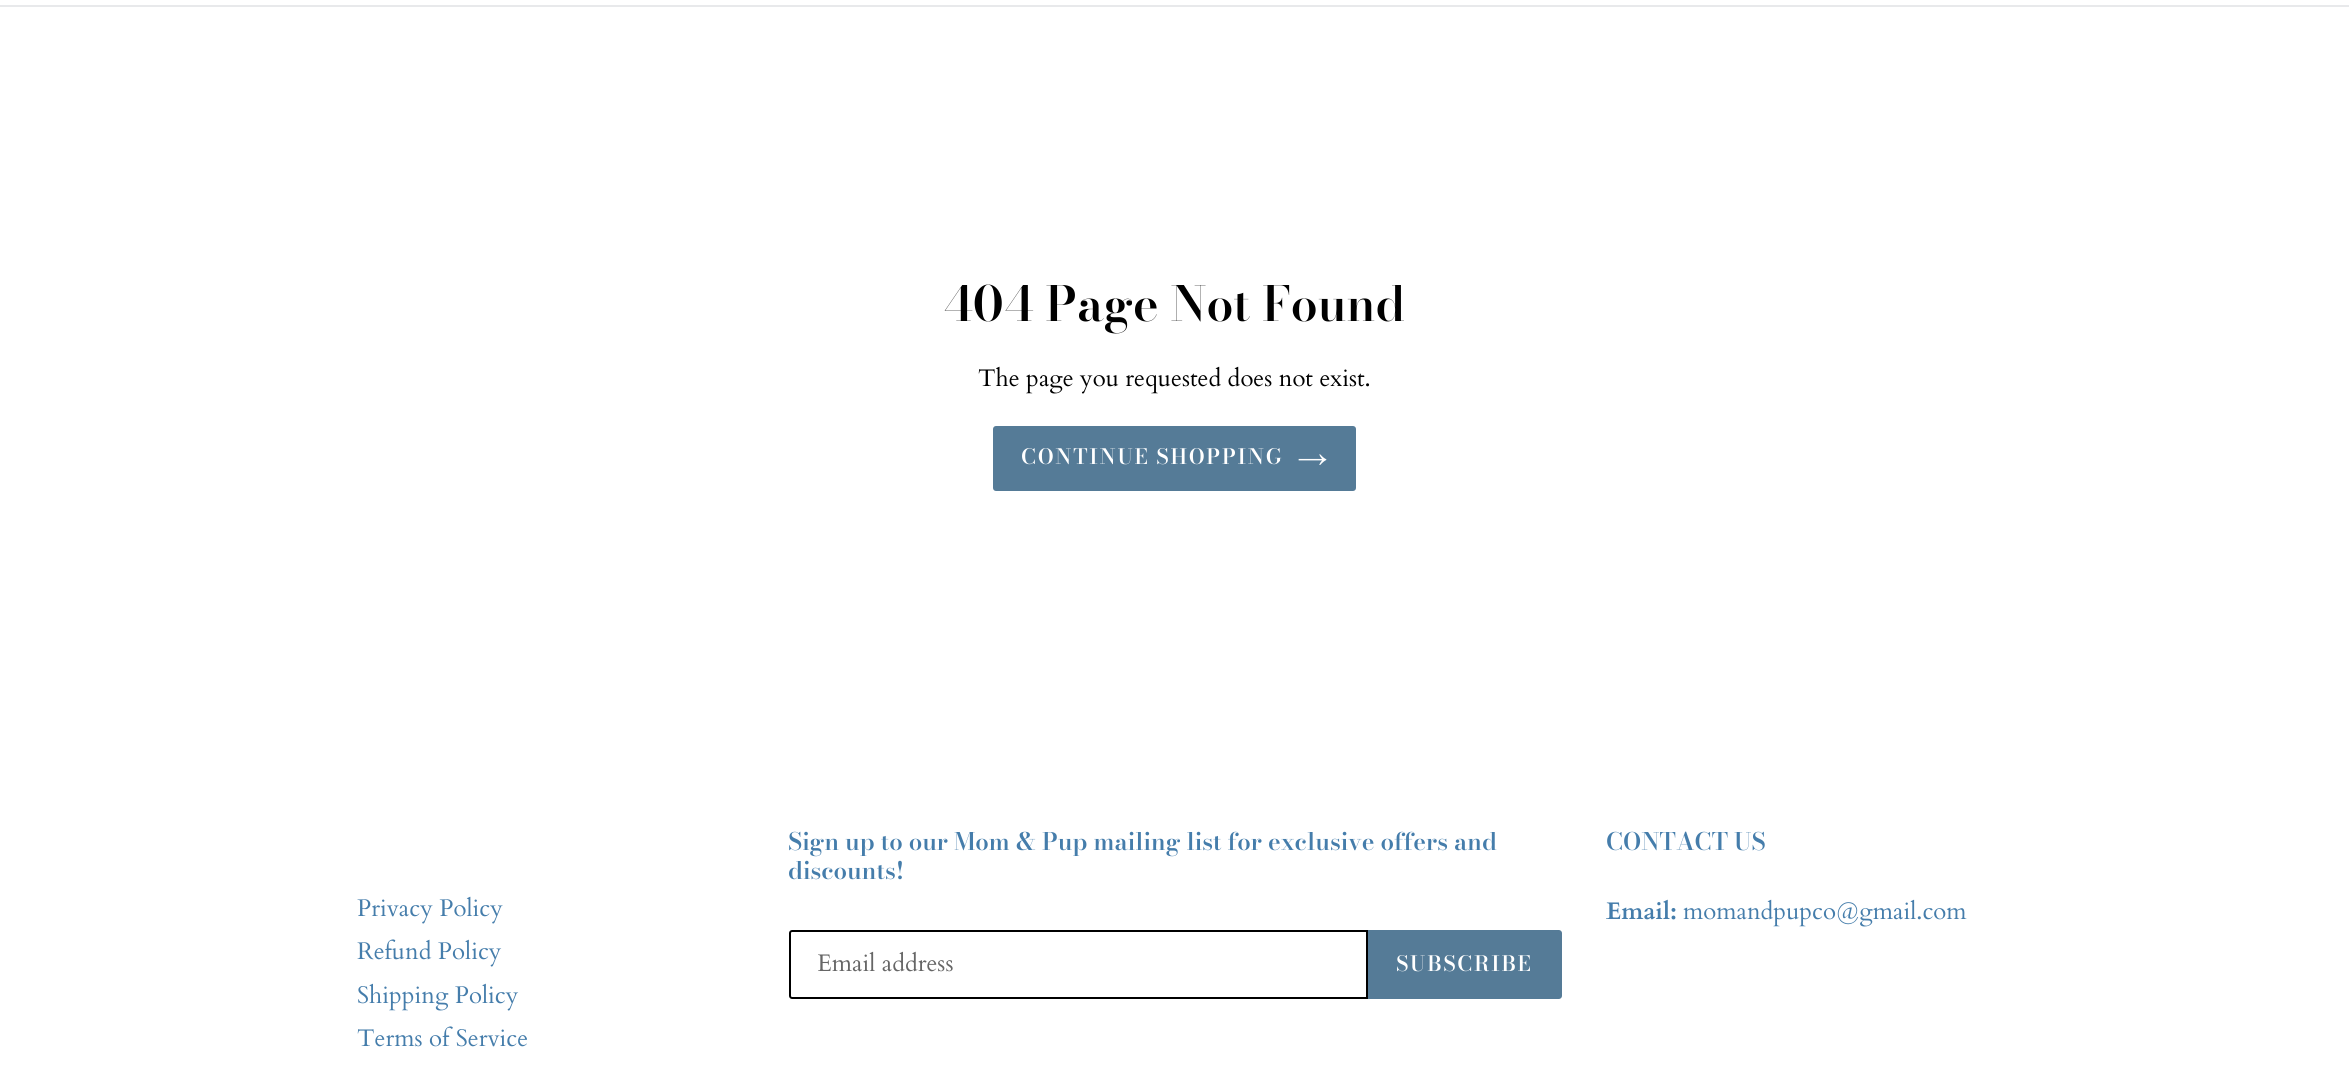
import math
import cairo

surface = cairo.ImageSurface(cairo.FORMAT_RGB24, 2349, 1092)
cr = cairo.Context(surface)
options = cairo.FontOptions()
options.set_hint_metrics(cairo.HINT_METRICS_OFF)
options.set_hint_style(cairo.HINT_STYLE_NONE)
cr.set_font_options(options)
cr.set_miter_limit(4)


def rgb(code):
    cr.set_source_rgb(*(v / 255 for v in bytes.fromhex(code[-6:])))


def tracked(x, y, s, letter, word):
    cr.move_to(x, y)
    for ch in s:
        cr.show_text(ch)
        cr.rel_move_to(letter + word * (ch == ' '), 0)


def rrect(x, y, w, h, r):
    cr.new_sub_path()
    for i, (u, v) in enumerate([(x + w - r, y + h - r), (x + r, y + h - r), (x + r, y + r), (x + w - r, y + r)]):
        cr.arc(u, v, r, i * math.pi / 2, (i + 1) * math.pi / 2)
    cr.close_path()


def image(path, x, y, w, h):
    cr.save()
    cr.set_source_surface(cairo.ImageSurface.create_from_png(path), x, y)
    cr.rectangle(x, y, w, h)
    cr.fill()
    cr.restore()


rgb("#ffffff")
cr.paint()
rgb("#e8e9eb")
cr.rectangle(0, 5, 2349, 2)
cr.fill()
rgb("#557b97")
rrect(993, 426, 363, 65, 3)
cr.fill()
image("img/1.png", 1298, 454, 29, 11)
cr.new_path()
cr.move_to(792, 931)
cr.line_to(1367, 931)
cr.line_to(1367, 998)
cr.line_to(792, 998)
cr.curve_to(791, 998, 790, 997, 790, 996)
cr.line_to(790, 933)
cr.curve_to(790, 932, 791, 931, 792, 931)
cr.close_path()
rgb("#000000")
cr.stroke()
rgb("#557b97")
cr.new_path()
cr.move_to(1368, 930)
cr.line_to(1559, 930)
cr.curve_to(1560.5, 930, 1562, 931.5, 1562, 933)
cr.line_to(1562, 996)
cr.curve_to(1562, 997.5, 1560.5, 999, 1559, 999)
cr.line_to(1368, 999)
cr.close_path()
cr.fill()
cr.select_font_face("Bodoni Moda SemiBold")
cr.set_font_size(48)
rgb("#000000")
cr.move_to(943, 321)
cr.show_text("404 Page Not Found")
cr.select_font_face("Cardo")
cr.set_font_size(24)
cr.move_to(978, 386)
cr.show_text("The page you requested does not exist.")
cr.select_font_face("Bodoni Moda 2 SemiBold")
cr.set_font_size(21)
rgb("#ffffff")
tracked(1021, 464, "CONTINUE SHOPPING", 1.7, 0)
cr.select_font_face("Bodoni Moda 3 SemiBold")
cr.set_font_size(24)
rgb("#457dab")
cr.move_to(788, 850)
cr.show_text("Sign up to our Mom & Pup mailing list for exclusive offers and")
cr.move_to(788, 879)
cr.show_text("discounts!")
cr.save()
cr.rectangle(818, 947, 522, 33)
cr.clip()
cr.select_font_face("Cardo")
rgb("#666666")
cr.move_to(817, 971)
cr.show_text("Email address")
cr.restore()
cr.select_font_face("Bodoni Moda 2 SemiBold")
cr.set_font_size(21)
rgb("#ffffff")
tracked(1396, 971, "SUBSCRIBE", 1.7, 0)
cr.select_font_face("Bodoni Moda 3 SemiBold")
cr.set_font_size(24)
rgb("#457dab")
cr.move_to(1606, 850)
cr.show_text("CONTACT US")
cr.select_font_face("Cardo", cairo.FONT_SLANT_NORMAL, cairo.FONT_WEIGHT_BOLD)
cr.move_to(1606, 919)
cr.show_text("Email:")
cr.select_font_face("Cardo")
for x, y, s in [
    (1683, 919, "momandpupco@gmail.com"),
    (357, 916, "Privacy Policy"),
    (357, 959, "Refund Policy"),
    (357, 1003, "Shipping Policy"),
    (357, 1046, "Terms of Service"),
]:
    cr.move_to(x, y)
    cr.show_text(s)
surface.write_to_png("page.png")
